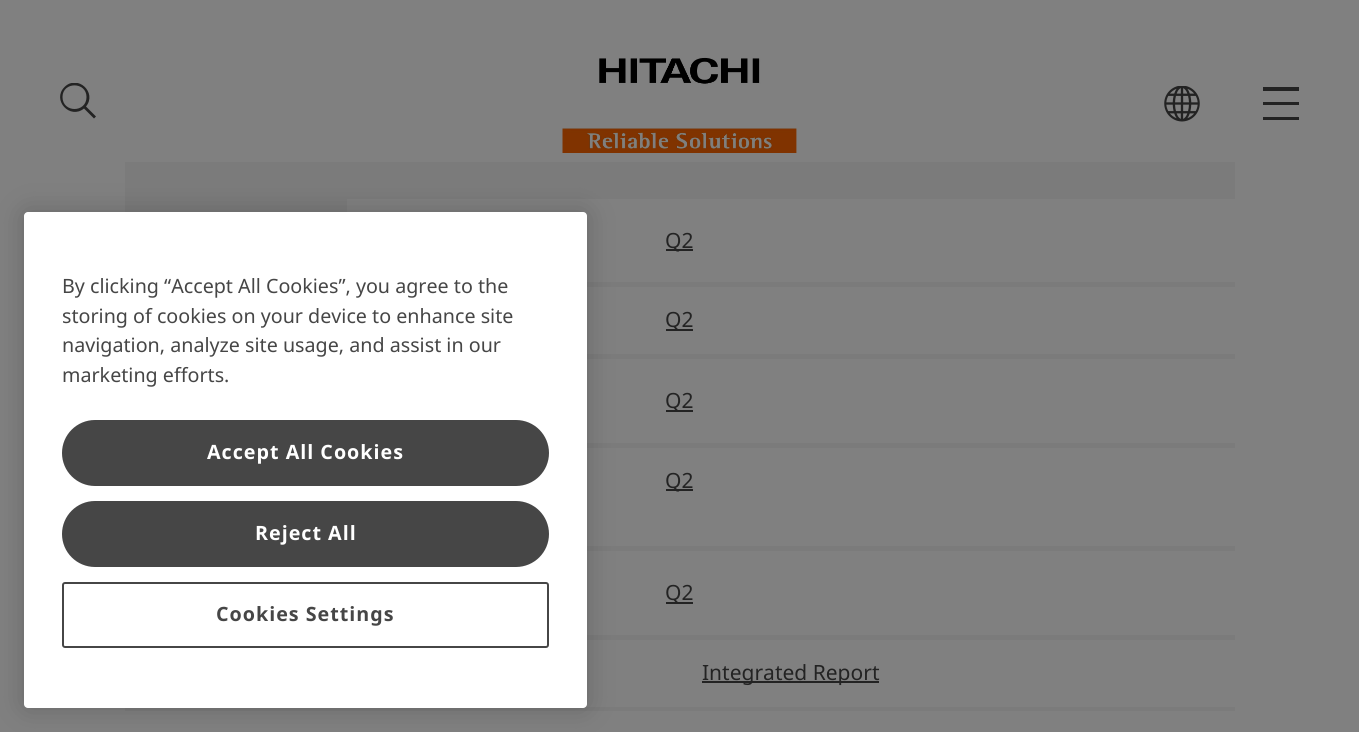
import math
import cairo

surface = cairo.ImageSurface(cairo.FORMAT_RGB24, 1359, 732)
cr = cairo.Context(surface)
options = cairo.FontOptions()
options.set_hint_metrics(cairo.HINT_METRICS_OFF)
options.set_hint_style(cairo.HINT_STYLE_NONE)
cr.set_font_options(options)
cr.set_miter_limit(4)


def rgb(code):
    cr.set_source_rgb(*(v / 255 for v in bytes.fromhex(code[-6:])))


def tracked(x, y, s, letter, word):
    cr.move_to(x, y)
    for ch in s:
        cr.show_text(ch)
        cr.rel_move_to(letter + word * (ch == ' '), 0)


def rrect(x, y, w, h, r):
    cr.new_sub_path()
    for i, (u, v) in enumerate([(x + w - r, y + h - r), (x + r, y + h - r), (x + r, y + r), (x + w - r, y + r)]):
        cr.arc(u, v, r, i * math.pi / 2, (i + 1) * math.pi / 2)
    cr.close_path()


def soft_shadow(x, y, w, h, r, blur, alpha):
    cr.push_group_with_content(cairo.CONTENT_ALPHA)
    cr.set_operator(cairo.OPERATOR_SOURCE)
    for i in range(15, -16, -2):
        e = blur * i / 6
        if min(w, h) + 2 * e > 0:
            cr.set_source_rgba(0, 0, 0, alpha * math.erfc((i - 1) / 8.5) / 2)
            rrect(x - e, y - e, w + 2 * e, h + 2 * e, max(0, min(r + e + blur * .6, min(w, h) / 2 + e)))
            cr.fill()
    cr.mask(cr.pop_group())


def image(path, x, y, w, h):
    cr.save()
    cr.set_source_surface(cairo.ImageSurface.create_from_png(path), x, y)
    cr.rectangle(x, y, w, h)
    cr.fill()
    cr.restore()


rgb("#808080")
cr.paint()
for x, y, w, h, color in [
    (125, 162, 1110, 37, "#7b7b7b"),
    (587, 282, 648, 5, "#7b7b7b"),
    (125, 199, 222, 13, "#7b7b7b"),
    (587, 354, 648, 5, "#7b7b7b"),
    (587, 443, 648, 5, "#7b7b7b"),
    (587, 546, 648, 5, "#7b7b7b"),
    (587, 635, 648, 5, "#7b7b7b"),
    (125, 707, 1110, 4, "#7b7b7b"),
]:
    rgb(color)
    cr.rectangle(x, y, w, h)
    cr.fill()
rgb("#000000")
soft_shadow(24, 212, 563, 496, 4, 13.5, 0.2)
rgb("#ffffff")
rrect(24, 212, 563, 496, 4)
cr.fill()
rgb("#464646")
rrect(63, 421, 485, 64, 32)
cr.fill_preserve()
cr.stroke()
rrect(63, 502, 485, 64, 32)
cr.fill_preserve()
cr.stroke()
rrect(63, 583, 485, 64, 2)
cr.stroke()
image("img/1.png", 562, 57, 235, 96)
cr.save()
cr.rectangle(60, 83, 36, 36)
cr.clip()
rgb("#232323")
cr.new_path()
cr.move_to(96, 116.5)
cr.line_to(86, 106.5)
cr.curve_to(97.5, 92.5, 77.5, 74, 64.5, 87)
cr.curve_to(51.5, 100, 70, 120, 84, 108.5)
cr.line_to(94, 118.5)
cr.close_path()
cr.move_to(62.5, 97)
cr.curve_to(62.5, 81.5, 86.5, 81.5, 86.5, 97)
cr.curve_to(86.5, 113, 62.5, 113, 62.5, 97)
cr.close_path()
cr.fill()
cr.restore()
image("img/2.png", 1164, 86, 36, 36)
for x, y, w, h, color in [
    (1263, 87, 36, 4, "#232323"),
    (1263, 102, 36, 3, "#232323"),
    (1263, 117, 36, 3, "#232323"),
    (666, 249, 27, 2, "#232323"),
    (666, 329, 27, 2, "#232323"),
    (666, 410, 27, 2, "#232323"),
    (666, 489, 27, 2, "#232323"),
    (666, 602, 27, 2, "#232323"),
    (702, 681, 177, 2, "#232323"),
]:
    rgb(color)
    cr.rectangle(x, y, w, h)
    cr.fill()
cr.select_font_face("Noto Sans")
cr.set_font_size(19.7)
rgb("#464646")
for x, y, s in [
    (62, 293, "By clicking “Accept All Cookies”, you agree to the"),
    (62, 323, "storing of cookies on your device to enhance site"),
    (62, 352, "navigation, analyze site usage, and assist in our"),
    (62, 382, "marketing efforts."),
]:
    cr.move_to(x, y)
    cr.show_text(s)
cr.select_font_face("Noto Sans", cairo.FONT_SLANT_NORMAL, cairo.FONT_WEIGHT_BOLD)
rgb("#ffffff")
tracked(207, 459, "Accept All Cookies", 1, 0)
tracked(255, 540, "Reject All", 1, 0)
rgb("#464646")
tracked(216, 621, "Cookies Settings", 1, 0)
cr.select_font_face("Noto Sans")
cr.set_font_size(21)
rgb("#232323")
for x, y, s in [
    (665, 248, "Q2"),
    (665, 327, "Q2"),
    (665, 408, "Q2"),
    (665, 488, "Q2"),
    (665, 600, "Q2"),
    (702, 680, "Integrated Report"),
]:
    cr.move_to(x, y)
    cr.show_text(s)
surface.write_to_png("page.png")
